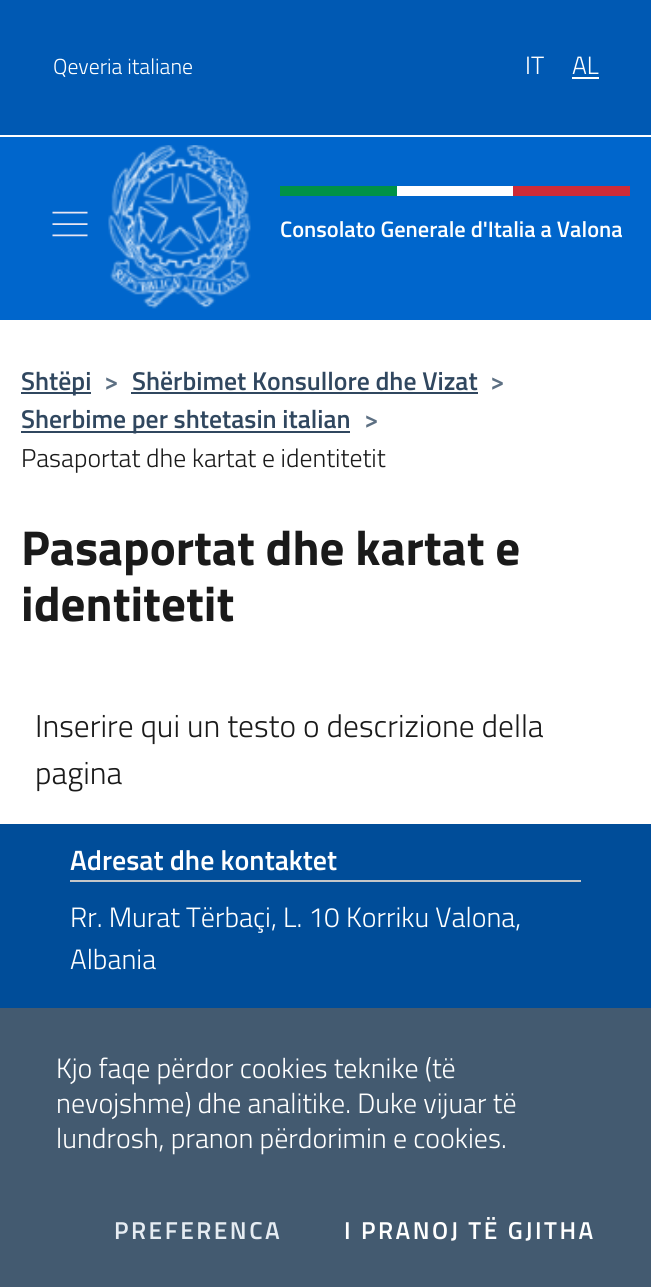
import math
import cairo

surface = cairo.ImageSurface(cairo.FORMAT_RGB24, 651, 1287)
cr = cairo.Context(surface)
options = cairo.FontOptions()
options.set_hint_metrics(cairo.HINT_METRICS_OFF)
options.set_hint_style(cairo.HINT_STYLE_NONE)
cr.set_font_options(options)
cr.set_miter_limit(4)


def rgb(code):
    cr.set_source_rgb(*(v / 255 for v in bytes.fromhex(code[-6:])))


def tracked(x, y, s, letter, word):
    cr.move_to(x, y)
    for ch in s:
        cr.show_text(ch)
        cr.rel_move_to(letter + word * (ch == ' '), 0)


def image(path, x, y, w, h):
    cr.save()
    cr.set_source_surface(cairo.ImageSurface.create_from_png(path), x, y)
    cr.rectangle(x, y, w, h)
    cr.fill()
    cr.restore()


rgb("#ffffff")
cr.paint()
for x, y, w, h, color in [
    (0, 0, 651, 135, "#0059b3"),
    (572, 77, 27, 2, "#ffffff"),
    (0, 137, 651, 183, "#0066cc"),
]:
    rgb(color)
    cr.rectangle(x, y, w, h)
    cr.fill()
image("img/1.png", 52, 211, 36, 26)
image("img/2.png", 108, 145, 143, 164)
for x, y, w, h, color in [
    (280, 186, 117, 10, "#009246"),
    (397, 186, 116, 10, "#ffffff"),
    (513, 186, 117, 10, "#ce2b37"),
    (21, 392, 70, 2, "#30475f"),
    (131, 392, 347, 2, "#30475f"),
    (21, 431, 329, 2, "#30475f"),
    (0, 824, 651, 184, "#004d99"),
    (70, 880, 511, 2, "#c5c7c9"),
    (0, 1008, 651, 279, "#435a70"),
]:
    rgb(color)
    cr.rectangle(x, y, w, h)
    cr.fill()
cr.select_font_face("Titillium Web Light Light")
cr.set_font_size(21.75)
rgb("#ffffff")
cr.move_to(53, 74)
cr.show_text("Qeveria italiane")
cr.set_font_size(25)
cr.move_to(525, 74)
cr.show_text("IT")
cr.move_to(572, 74)
cr.show_text("AL")
cr.select_font_face("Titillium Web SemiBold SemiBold")
cr.set_font_size(22.4)
cr.move_to(280, 237)
cr.show_text("Consolato Generale d'Italia a Valona")
cr.set_font_size(25.75)
rgb("#30475f")
cr.move_to(21, 390)
cr.show_text("Shtëpi")
rgb("#5d7083")
cr.move_to(104, 390)
cr.show_text(">")
rgb("#30475f")
cr.move_to(132, 390)
cr.show_text("Shërbimet Konsullore dhe Vizat")
rgb("#5d7083")
cr.move_to(490, 390)
cr.show_text(">")
rgb("#30475f")
cr.move_to(21, 428)
cr.show_text("Sherbime per shtetasin italian")
rgb("#5d7083")
cr.move_to(364, 428)
cr.show_text(">")
cr.select_font_face("Titillium Web Light Light")
rgb("#1a1a1a")
cr.move_to(21, 467)
cr.show_text("Pasaportat dhe kartat e identitetit")
cr.select_font_face("Titillium Web", cairo.FONT_SLANT_NORMAL, cairo.FONT_WEIGHT_BOLD)
cr.set_font_size(49)
cr.move_to(21, 565)
cr.show_text("Pasaportat dhe kartat e")
cr.move_to(21, 621)
cr.show_text("identitetit")
cr.select_font_face("Titillium Web Light Light")
cr.set_font_size(31.5)
cr.move_to(35, 737)
cr.show_text("Inserire qui un testo o descrizione della")
cr.move_to(35, 784)
cr.show_text("pagina")
cr.select_font_face("Titillium Web SemiBold SemiBold")
cr.set_font_size(28)
rgb("#ffffff")
cr.move_to(70, 870)
cr.show_text("Adresat dhe kontaktet")
cr.select_font_face("Titillium Web Light Light")
for x, y, s in [
    (70, 927, "Rr. Murat Tërbaçi, L. 10 Korriku Valona,"),
    (70, 969, "Albania"),
    (56, 1078, "Kjo faqe përdor cookies teknike (të"),
    (56, 1113, "nevojshme) dhe analitike. Duke vijuar të"),
    (56, 1148, "lundrosh, pranon përdorimin e cookies."),
]:
    cr.move_to(x, y)
    cr.show_text(s)
cr.select_font_face("Titillium Web SemiBold SemiBold")
cr.set_font_size(24.5)
rgb("#e6ecf2")
tracked(114, 1239, "PREFERENCA", 2.5, 0)
rgb("#ffffff")
tracked(344, 1239, "I PRANOJ TË GJITHA", 2.5, 0)
surface.write_to_png("page.png")
